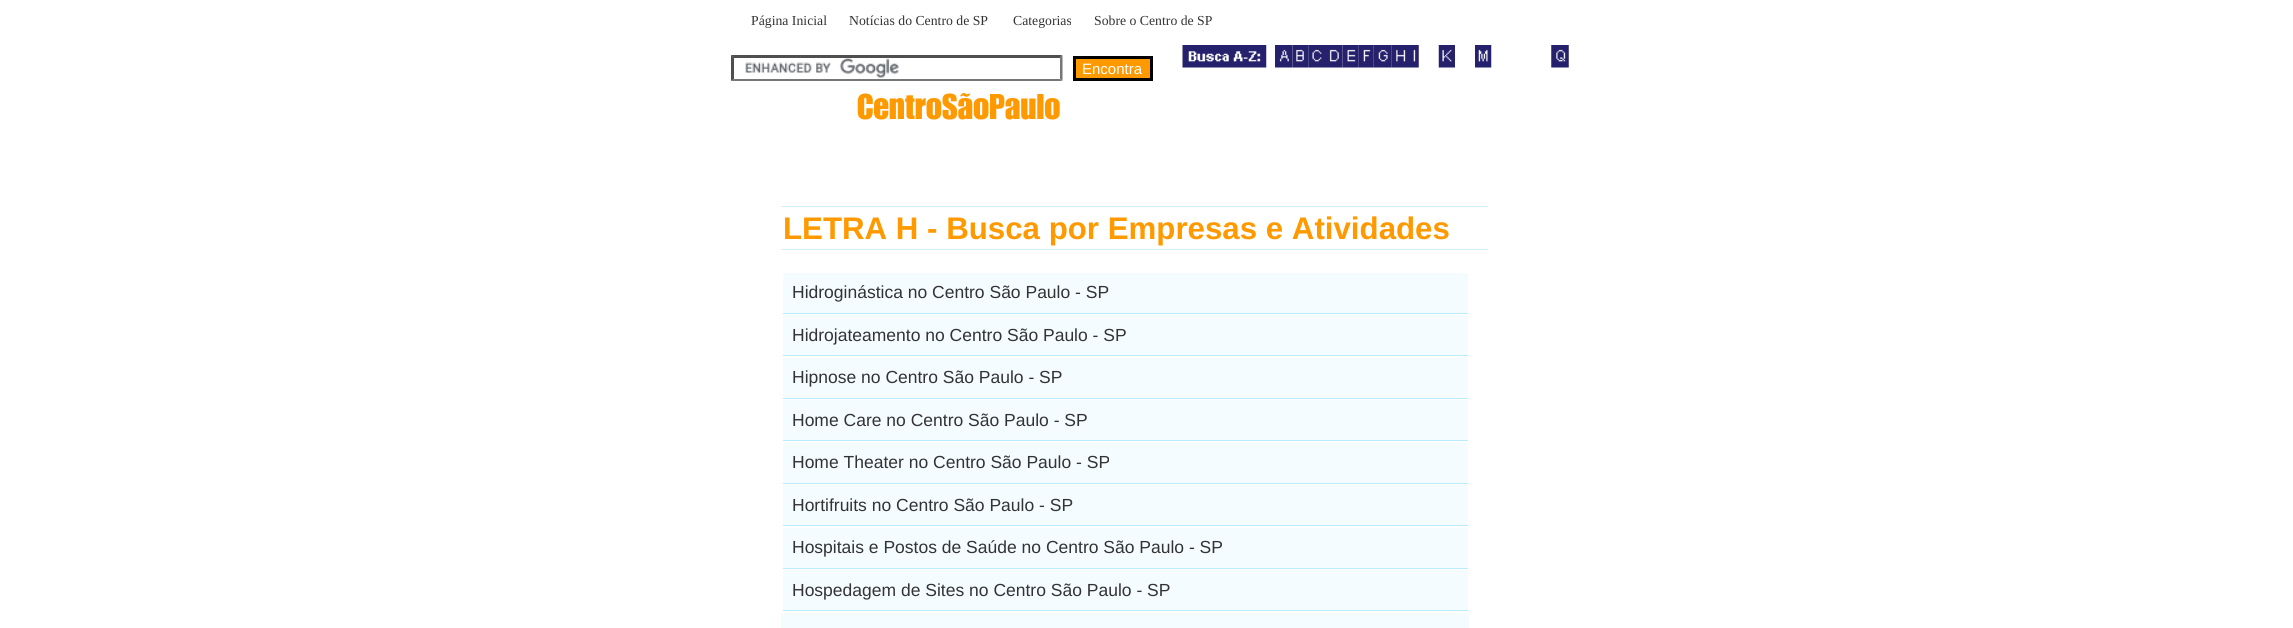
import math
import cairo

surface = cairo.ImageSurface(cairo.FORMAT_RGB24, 2293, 628)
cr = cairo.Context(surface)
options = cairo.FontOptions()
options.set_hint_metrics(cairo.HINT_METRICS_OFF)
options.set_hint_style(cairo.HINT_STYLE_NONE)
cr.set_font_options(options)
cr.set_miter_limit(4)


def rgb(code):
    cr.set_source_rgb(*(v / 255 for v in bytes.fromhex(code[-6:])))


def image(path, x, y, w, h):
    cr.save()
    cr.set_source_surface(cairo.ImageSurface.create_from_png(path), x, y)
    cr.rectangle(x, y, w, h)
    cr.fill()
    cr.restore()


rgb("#ffffff")
cr.paint()
image("img/1.png", 745, 58, 154, 20)
rgb("#4f4f4f")
cr.new_path()
cr.move_to(731, 55)
cr.line_to(1062, 55)
cr.line_to(1060, 58)
cr.line_to(734, 58)
cr.close_path()
cr.fill()
rgb("#767676")
cr.new_path()
cr.move_to(1062.5, 55)
cr.line_to(1062.5, 81)
cr.line_to(1060, 79)
cr.line_to(1060, 57.5)
cr.close_path()
cr.fill()
cr.new_path()
cr.move_to(1062, 81)
cr.line_to(731, 81)
cr.line_to(734, 79)
cr.line_to(1060, 79)
cr.close_path()
cr.fill()
rgb("#4f4f4f")
cr.new_path()
cr.move_to(731, 81)
cr.line_to(731, 55)
cr.line_to(734, 57.5)
cr.line_to(734, 79)
cr.close_path()
cr.fill()
rgb("#ff9900")
cr.rectangle(1074.5, 57.5, 77, 22)
cr.fill_preserve()
rgb("#000000")
cr.set_line_width(3)
cr.stroke()
image("img/2.png", 1182, 45, 85, 23)
image("img/3.png", 1275, 45, 18, 23)
image("img/4.png", 1292, 45, 17, 23)
image("img/5.png", 1308, 45, 17, 23)
image("img/6.png", 1325, 45, 18, 23)
image("img/7.png", 1342, 45, 17, 23)
image("img/8.png", 1358, 45, 16, 23)
image("img/9.png", 1373, 45, 19, 23)
image("img/10.png", 1391, 45, 19, 23)
image("img/11.png", 1410, 45, 9, 23)
image("img/12.png", 1438, 45, 17, 23)
image("img/13.png", 1475, 45, 17, 23)
image("img/14.png", 1551, 45, 18, 23)
for x, y, w, h, color in [
    (781, 206, 707, 1, "#d2f0ff"),
    (781, 249, 707, 1, "#d2f0ff"),
    (783, 273, 685, 40, "#f4fcff"),
    (783, 313, 685, 1, "#b9ecff"),
    (783, 315, 685, 40, "#f4fcff"),
    (783, 355, 685, 1, "#b9ecff"),
    (783, 358, 685, 40, "#f4fcff"),
    (783, 398, 685, 1, "#b9ecff"),
    (783, 400, 685, 40, "#f4fcff"),
    (783, 440, 685, 1, "#b9ecff"),
    (783, 443, 685, 40, "#f4fcff"),
    (783, 483, 685, 1, "#b9ecff"),
    (783, 485, 685, 40, "#f4fcff"),
    (783, 525, 685, 1, "#b9ecff"),
    (783, 528, 685, 40, "#f4fcff"),
    (783, 568, 685, 1, "#b9ecff"),
    (783, 570, 685, 40, "#f4fcff"),
    (783, 610, 685, 1, "#b9ecff"),
    (781, 613, 688, 15, "#f4fcff"),
]:
    rgb(color)
    cr.rectangle(x, y, w, h)
    cr.fill()
cr.select_font_face("Liberation Serif")
cr.set_font_size(13.75)
rgb("#333333")
for x, y, s in [
    (751, 25, "Página Inicial"),
    (849, 25, "Notícias do Centro de SP"),
    (1013, 25, "Categorias"),
    (1094, 25, "Sobre o Centro de SP"),
]:
    cr.move_to(x, y)
    cr.show_text(s)
cr.select_font_face("Liberation Sans")
cr.set_font_size(15)
rgb("#ffffff")
cr.move_to(1082, 74)
cr.show_text("Encontra")
cr.select_font_face("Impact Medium")
cr.set_font_size(35)
rgb("#ff9900")
cr.move_to(857, 119)
cr.show_text("CentroSãoPaulo")
cr.select_font_face("Liberation Sans", cairo.FONT_SLANT_NORMAL, cairo.FONT_WEIGHT_BOLD)
cr.set_font_size(31.25)
cr.move_to(783, 239)
cr.show_text("LETRA H - Busca por Empresas e Atividades")
cr.select_font_face("Liberation Sans")
cr.set_font_size(17.5)
rgb("#333333")
for x, y, s in [
    (792, 298, "Hidroginástica no Centro São Paulo - SP"),
    (792, 341, "Hidrojateamento no Centro São Paulo - SP"),
    (792, 383, "Hipnose no Centro São Paulo - SP"),
    (792, 426, "Home Care no Centro São Paulo - SP"),
    (792, 468, "Home Theater no Centro São Paulo - SP"),
    (792, 511, "Hortifruits no Centro São Paulo - SP"),
    (792, 553, "Hospitais e Postos de Saúde no Centro São Paulo - SP"),
    (792, 596, "Hospedagem de Sites no Centro São Paulo - SP"),
]:
    cr.move_to(x, y)
    cr.show_text(s)
surface.write_to_png("page.png")
